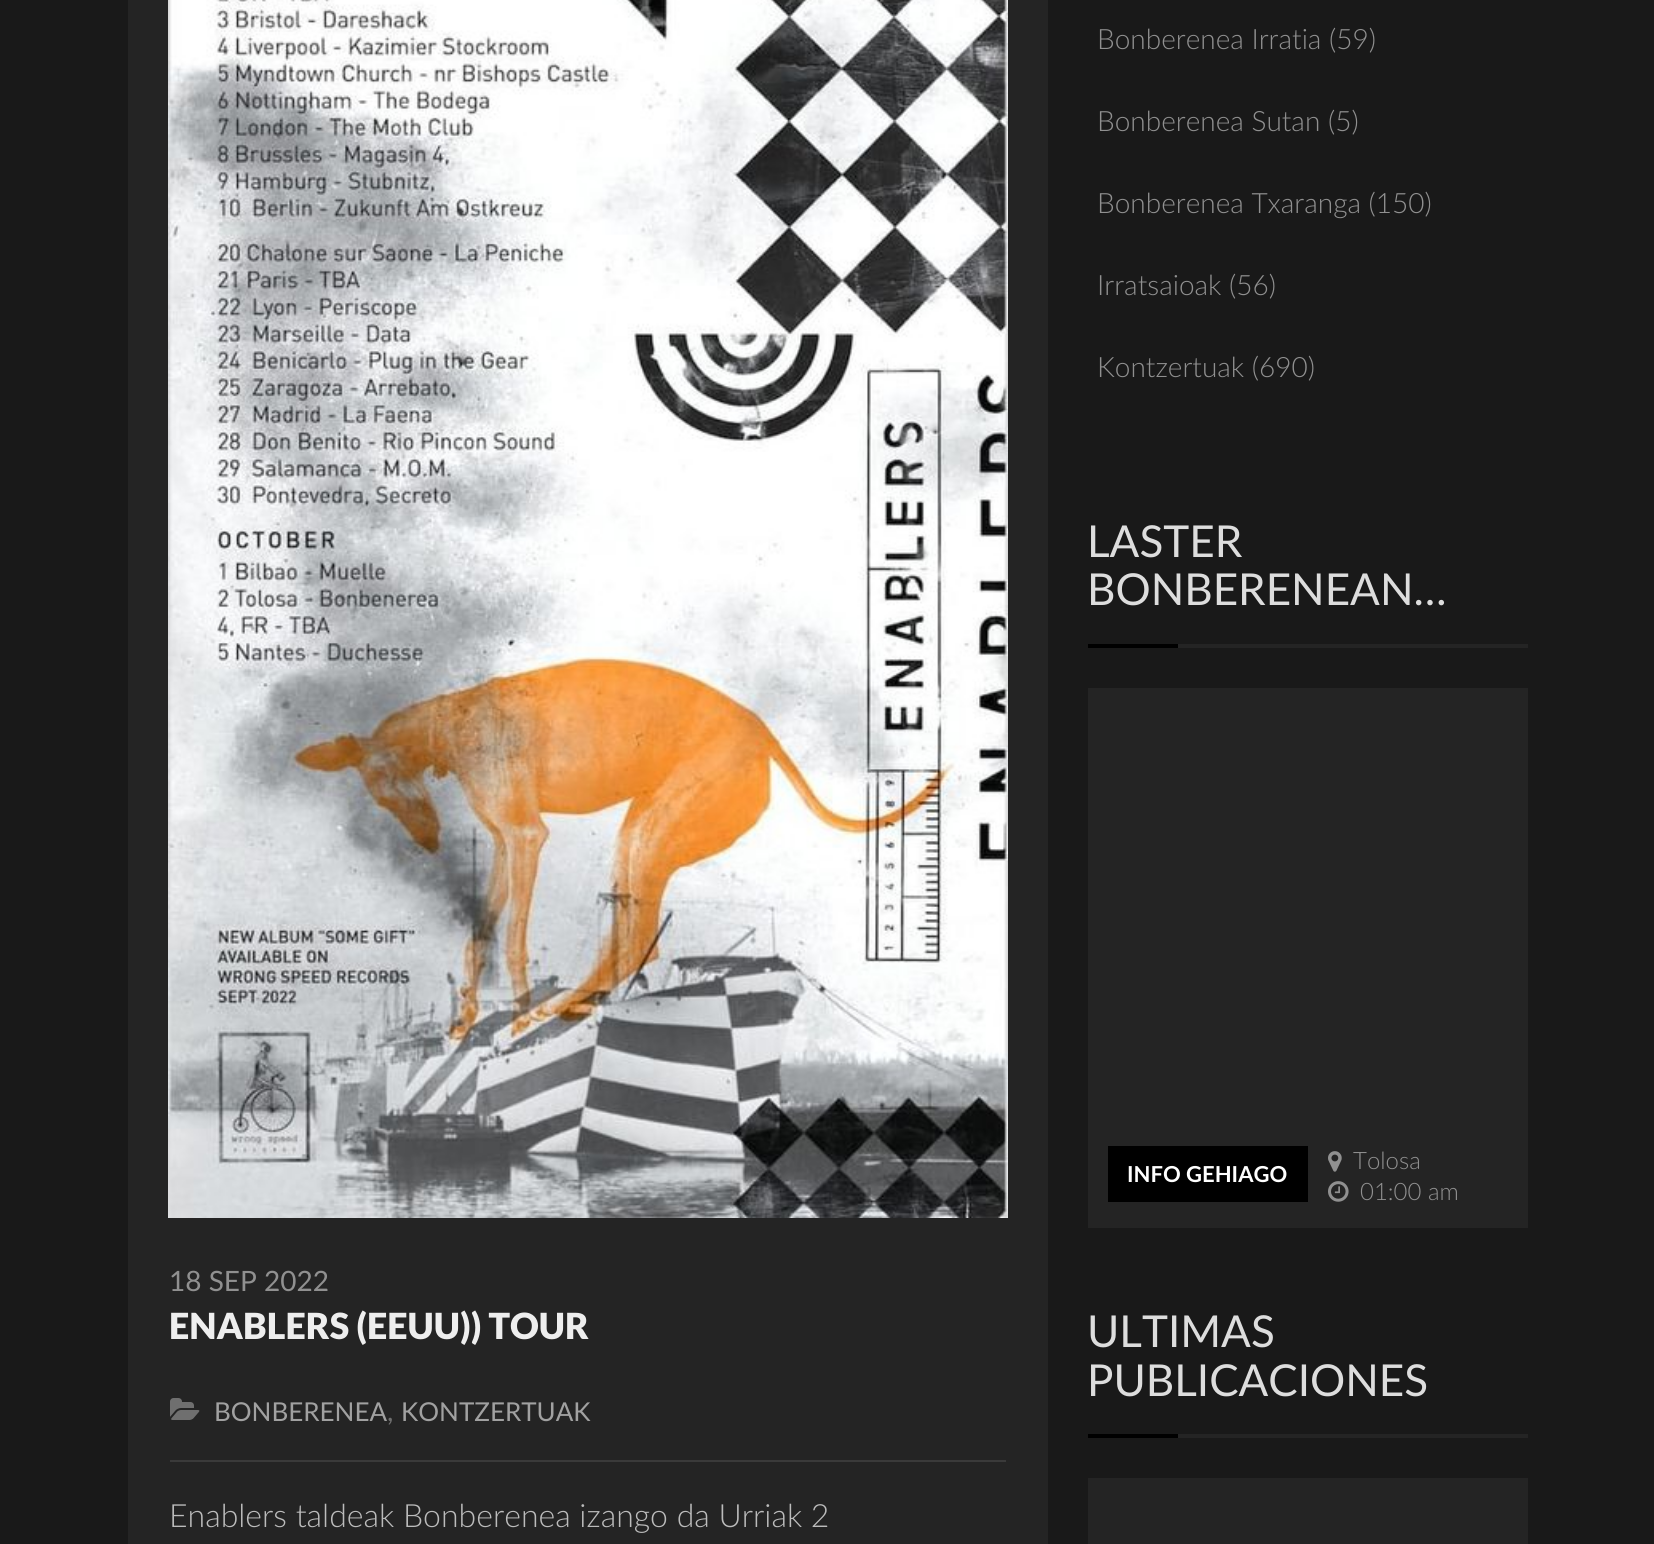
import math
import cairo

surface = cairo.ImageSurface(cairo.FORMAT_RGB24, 1654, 1544)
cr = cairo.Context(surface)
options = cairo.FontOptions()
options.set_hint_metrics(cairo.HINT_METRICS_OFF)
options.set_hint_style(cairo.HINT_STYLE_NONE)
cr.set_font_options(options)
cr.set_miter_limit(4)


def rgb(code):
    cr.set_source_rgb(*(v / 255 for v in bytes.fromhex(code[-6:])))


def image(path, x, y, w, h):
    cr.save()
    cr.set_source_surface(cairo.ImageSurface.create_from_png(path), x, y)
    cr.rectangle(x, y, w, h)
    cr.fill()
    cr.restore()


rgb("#191919")
cr.paint()
rgb("#242424")
cr.rectangle(128, 0, 920, 1544)
cr.fill()
image("img/1.png", 168, 0, 840, 1218)
image("img/2.png", 170, 1398, 30, 22)
for x, y, w, h, color in [
    (170, 1460, 836, 2, "#3a3a3a"),
    (1178, 644, 350, 4, "#242424"),
    (1088, 644, 90, 4, "#000000"),
    (1088, 688, 440, 540, "#242424"),
    (1108, 1146, 200, 56, "#000000"),
]:
    rgb(color)
    cr.rectangle(x, y, w, h)
    cr.fill()
image("img/3.png", 1328, 1151, 14, 21)
image("img/4.png", 1328, 1181, 21, 21)
for x, y, w, h, color in [
    (1178, 1434, 350, 4, "#242424"),
    (1088, 1434, 90, 4, "#000000"),
    (1088, 1478, 440, 66, "#242424"),
]:
    rgb(color)
    cr.rectangle(x, y, w, h)
    cr.fill()
cr.select_font_face("Lato")
cr.set_font_size(28)
rgb("#909090")
cr.move_to(169, 1291)
cr.show_text("18 SEP 2022")
cr.select_font_face("Lato Black")
cr.set_font_size(36)
rgb("#eeeeee")
cr.move_to(169, 1339)
cr.show_text("ENABLERS (EEUU)) TOUR")
cr.select_font_face("Lato")
cr.set_font_size(26)
rgb("#a1a1a1")
cr.move_to(214, 1421)
cr.show_text("BONBERENEA")
cr.set_font_size(28)
rgb("#6f6f6f")
cr.move_to(387, 1421)
cr.show_text(",")
cr.set_font_size(26)
rgb("#a1a1a1")
cr.move_to(401, 1421)
cr.show_text("KONTZERTUAK")
cr.select_font_face("Lato Light")
cr.set_font_size(32)
rgb("#bcbcbc")
cr.move_to(169, 1527)
cr.show_text("Enablers taldeak Bonberenea izango da Urriak 2")
cr.set_font_size(28)
rgb("#909090")
for x, y, s in [
    (1097, 49, "Bonberenea Irratia (59)"),
    (1097, 131, "Bonberenea Sutan (5)"),
    (1097, 213, "Bonberenea Txaranga (150)"),
    (1097, 295, "Irratsaioak (56)"),
    (1097, 377, "Kontzertuak (690)"),
]:
    cr.move_to(x, y)
    cr.show_text(s)
cr.select_font_face("Lato")
cr.set_font_size(44)
rgb("#dddddd")
cr.move_to(1087, 557)
cr.show_text("LASTER")
cr.move_to(1087, 605)
cr.show_text("BONBERENEAN…")
cr.select_font_face("Lato", cairo.FONT_SLANT_NORMAL, cairo.FONT_WEIGHT_BOLD)
cr.set_font_size(22)
rgb("#ffffff")
cr.move_to(1127, 1182)
cr.show_text("INFO GEHIAGO")
cr.select_font_face("Lato Light")
cr.set_font_size(24)
rgb("#909090")
cr.move_to(1353, 1169)
cr.show_text("Tolosa")
cr.move_to(1360, 1200)
cr.show_text("01:00 am")
cr.select_font_face("Lato")
cr.set_font_size(44)
rgb("#dddddd")
cr.move_to(1087, 1347)
cr.show_text("ULTIMAS")
cr.move_to(1087, 1396)
cr.show_text("PUBLICACIONES")
surface.write_to_png("page.png")
